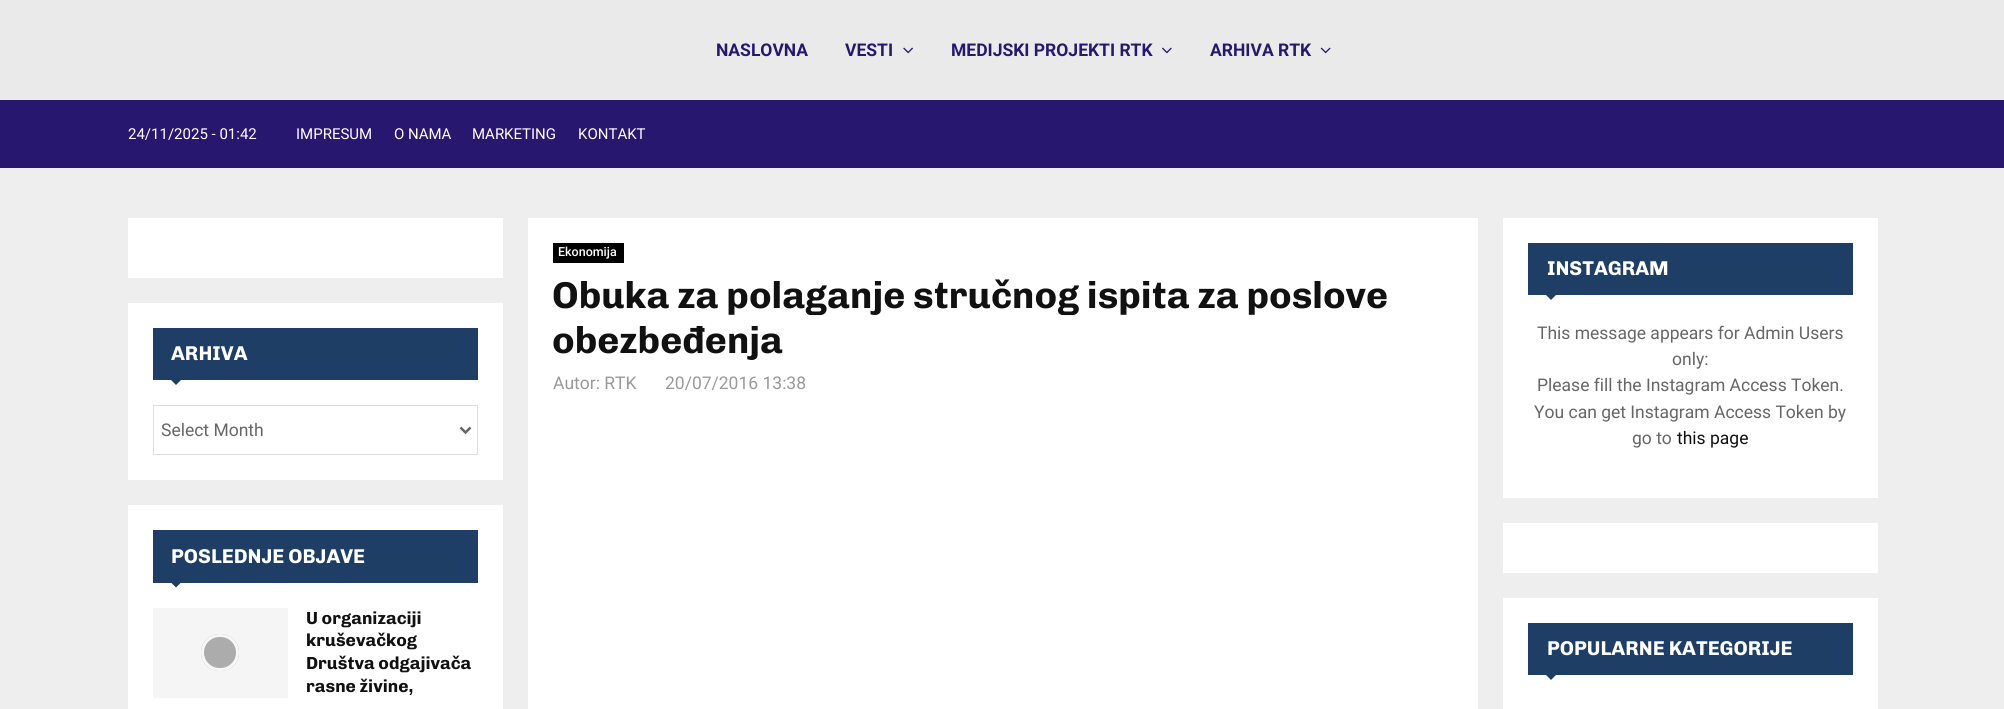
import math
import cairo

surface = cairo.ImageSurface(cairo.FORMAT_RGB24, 2004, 709)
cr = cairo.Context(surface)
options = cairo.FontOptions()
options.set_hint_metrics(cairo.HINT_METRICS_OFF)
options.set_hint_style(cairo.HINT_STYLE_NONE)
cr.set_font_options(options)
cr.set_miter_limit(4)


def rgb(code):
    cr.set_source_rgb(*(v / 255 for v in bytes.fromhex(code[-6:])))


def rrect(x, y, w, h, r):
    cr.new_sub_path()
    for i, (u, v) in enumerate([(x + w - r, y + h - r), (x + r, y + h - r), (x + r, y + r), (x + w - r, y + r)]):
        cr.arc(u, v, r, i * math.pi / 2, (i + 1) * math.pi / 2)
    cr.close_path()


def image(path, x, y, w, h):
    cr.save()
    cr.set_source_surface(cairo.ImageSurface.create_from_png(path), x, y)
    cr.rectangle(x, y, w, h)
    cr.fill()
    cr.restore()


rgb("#eeeeee")
cr.paint()
rgb("#eaeaea")
cr.rectangle(0, 0, 2004, 100)
cr.fill()
image("img/1.png", 903, 47, 10, 7)
image("img/2.png", 1162, 47, 10, 7)
image("img/3.png", 1320, 47, 11, 7)
for x, y, w, h, color in [
    (0, 100, 2004, 68, "#27176f"),
    (128, 218, 375, 60, "#ffffff"),
    (128, 303, 375, 177, "#ffffff"),
    (153, 328, 325, 52, "#1f3e66"),
]:
    rgb(color)
    cr.rectangle(x, y, w, h)
    cr.fill()
cr.new_path()
cr.move_to(171, 380)
cr.line_to(181, 380)
cr.line_to(176, 385)
cr.close_path()
cr.fill()
cr.rectangle(153.5, 405.5, 324, 49)
rgb("#dedede")
cr.set_line_width(1)
cr.stroke()
cr.new_path()
cr.move_to(460.5, 427.5)
cr.line_to(465.5, 432.5)
cr.line_to(470.5, 427.5)
rgb("#666666")
cr.set_line_width(2.5)
cr.stroke()
rgb("#ffffff")
cr.rectangle(128, 505, 375, 204)
cr.fill()
rgb("#1f3e66")
cr.rectangle(153, 530, 325, 53)
cr.fill()
cr.new_path()
cr.move_to(171, 582.5)
cr.line_to(181, 582.5)
cr.line_to(176, 587.5)
cr.close_path()
cr.fill()
rgb("#f5f5f5")
cr.rectangle(153, 608, 135, 90)
cr.fill()
rgb("#acacac")
rrect(201, 634, 38, 37, 18.5)
cr.fill()
rrect(202.5, 635.5, 35, 34, 17)
cr.set_source_rgba(1, 1, 1, 0.9)
cr.set_line_width(3)
cr.stroke()
for x, y, w, h, color in [
    (528, 218, 950, 491, "#ffffff"),
    (553, 243, 71, 20, "#000000"),
    (1503, 218, 375, 280, "#ffffff"),
    (1528, 243, 325, 52, "#1f3e66"),
]:
    rgb(color)
    cr.rectangle(x, y, w, h)
    cr.fill()
cr.new_path()
cr.move_to(1546, 295)
cr.line_to(1556, 295)
cr.line_to(1551, 300)
cr.close_path()
cr.fill()
for x, y, w, h, color in [
    (1503, 523, 375, 50, "#ffffff"),
    (1503, 598, 375, 111, "#ffffff"),
    (1528, 623, 325, 52, "#1f3e66"),
]:
    rgb(color)
    cr.rectangle(x, y, w, h)
    cr.fill()
cr.new_path()
cr.move_to(1546, 675)
cr.line_to(1556, 675)
cr.line_to(1551, 680)
cr.close_path()
cr.fill()
cr.select_font_face("Roboto", cairo.FONT_SLANT_NORMAL, cairo.FONT_WEIGHT_BOLD)
cr.set_font_size(17.5)
rgb("#27176f")
for x, y, s in [
    (716, 56, "NASLOVNA"),
    (845, 56, "VESTI"),
    (951, 56, "MEDIJSKI PROJEKTI RTK"),
    (1210, 56, "ARHIVA RTK"),
]:
    cr.move_to(x, y)
    cr.show_text(s)
cr.select_font_face("Roboto")
cr.set_font_size(15)
rgb("#ffffff")
for x, y, s in [
    (128, 139, "24/11/2025 - 01:42"),
    (296, 139, "IMPRESUM"),
    (394, 139, "O NAMA"),
    (472, 139, "MARKETING"),
    (578, 139, "KONTAKT"),
]:
    cr.move_to(x, y)
    cr.show_text(s)
cr.select_font_face("Chivo", cairo.FONT_SLANT_NORMAL, cairo.FONT_WEIGHT_BOLD)
cr.set_font_size(20)
cr.move_to(171, 360)
cr.show_text("ARHIVA")
cr.select_font_face("Roboto")
cr.set_font_size(17.5)
rgb("#666666")
cr.move_to(161, 436)
cr.show_text("Select Month")
cr.select_font_face("Chivo", cairo.FONT_SLANT_NORMAL, cairo.FONT_WEIGHT_BOLD)
cr.set_font_size(20)
rgb("#ffffff")
cr.move_to(171, 563)
cr.show_text("POSLEDNJE OBJAVE")
cr.set_font_size(17.5)
rgb("#111111")
for x, y, s in [
    (306, 624, "U organizaciji"),
    (306, 646, "kruševačkog"),
    (306, 669, "Društva odgajivača"),
    (306, 692, "rasne živine,"),
]:
    cr.move_to(x, y)
    cr.show_text(s)
cr.select_font_face("Roboto Medium")
cr.set_font_size(12.5)
rgb("#ffffff")
cr.move_to(558, 256)
cr.show_text("Ekonomija")
cr.select_font_face("Chivo", cairo.FONT_SLANT_NORMAL, cairo.FONT_WEIGHT_BOLD)
cr.set_font_size(37.5)
rgb("#111111")
cr.move_to(552, 308)
cr.show_text("Obuka za polaganje stručnog ispita za poslove")
cr.move_to(552, 353)
cr.show_text("obezbeđenja")
cr.select_font_face("Roboto")
cr.set_font_size(17.5)
rgb("#999999")
cr.move_to(553, 389)
cr.show_text("Autor: RTK")
cr.move_to(665, 389)
cr.show_text("20/07/2016 13:38")
cr.select_font_face("Chivo", cairo.FONT_SLANT_NORMAL, cairo.FONT_WEIGHT_BOLD)
cr.set_font_size(20)
rgb("#ffffff")
cr.move_to(1547, 275)
cr.show_text("INSTAGRAM")
cr.select_font_face("Roboto")
cr.set_font_size(17.5)
rgb("#666666")
for x, y, s in [
    (1537, 339, "This message appears for Admin Users"),
    (1672, 365, "only:"),
    (1537, 391, "Please fill the Instagram Access Token."),
    (1534, 418, "You can get Instagram Access Token by"),
    (1632, 444, "go to"),
]:
    cr.move_to(x, y)
    cr.show_text(s)
rgb("#111111")
cr.move_to(1677, 444)
cr.show_text("this page")
cr.select_font_face("Chivo", cairo.FONT_SLANT_NORMAL, cairo.FONT_WEIGHT_BOLD)
cr.set_font_size(20)
rgb("#ffffff")
cr.move_to(1547, 655)
cr.show_text("POPULARNE KATEGORIJE")
surface.write_to_png("page.png")
